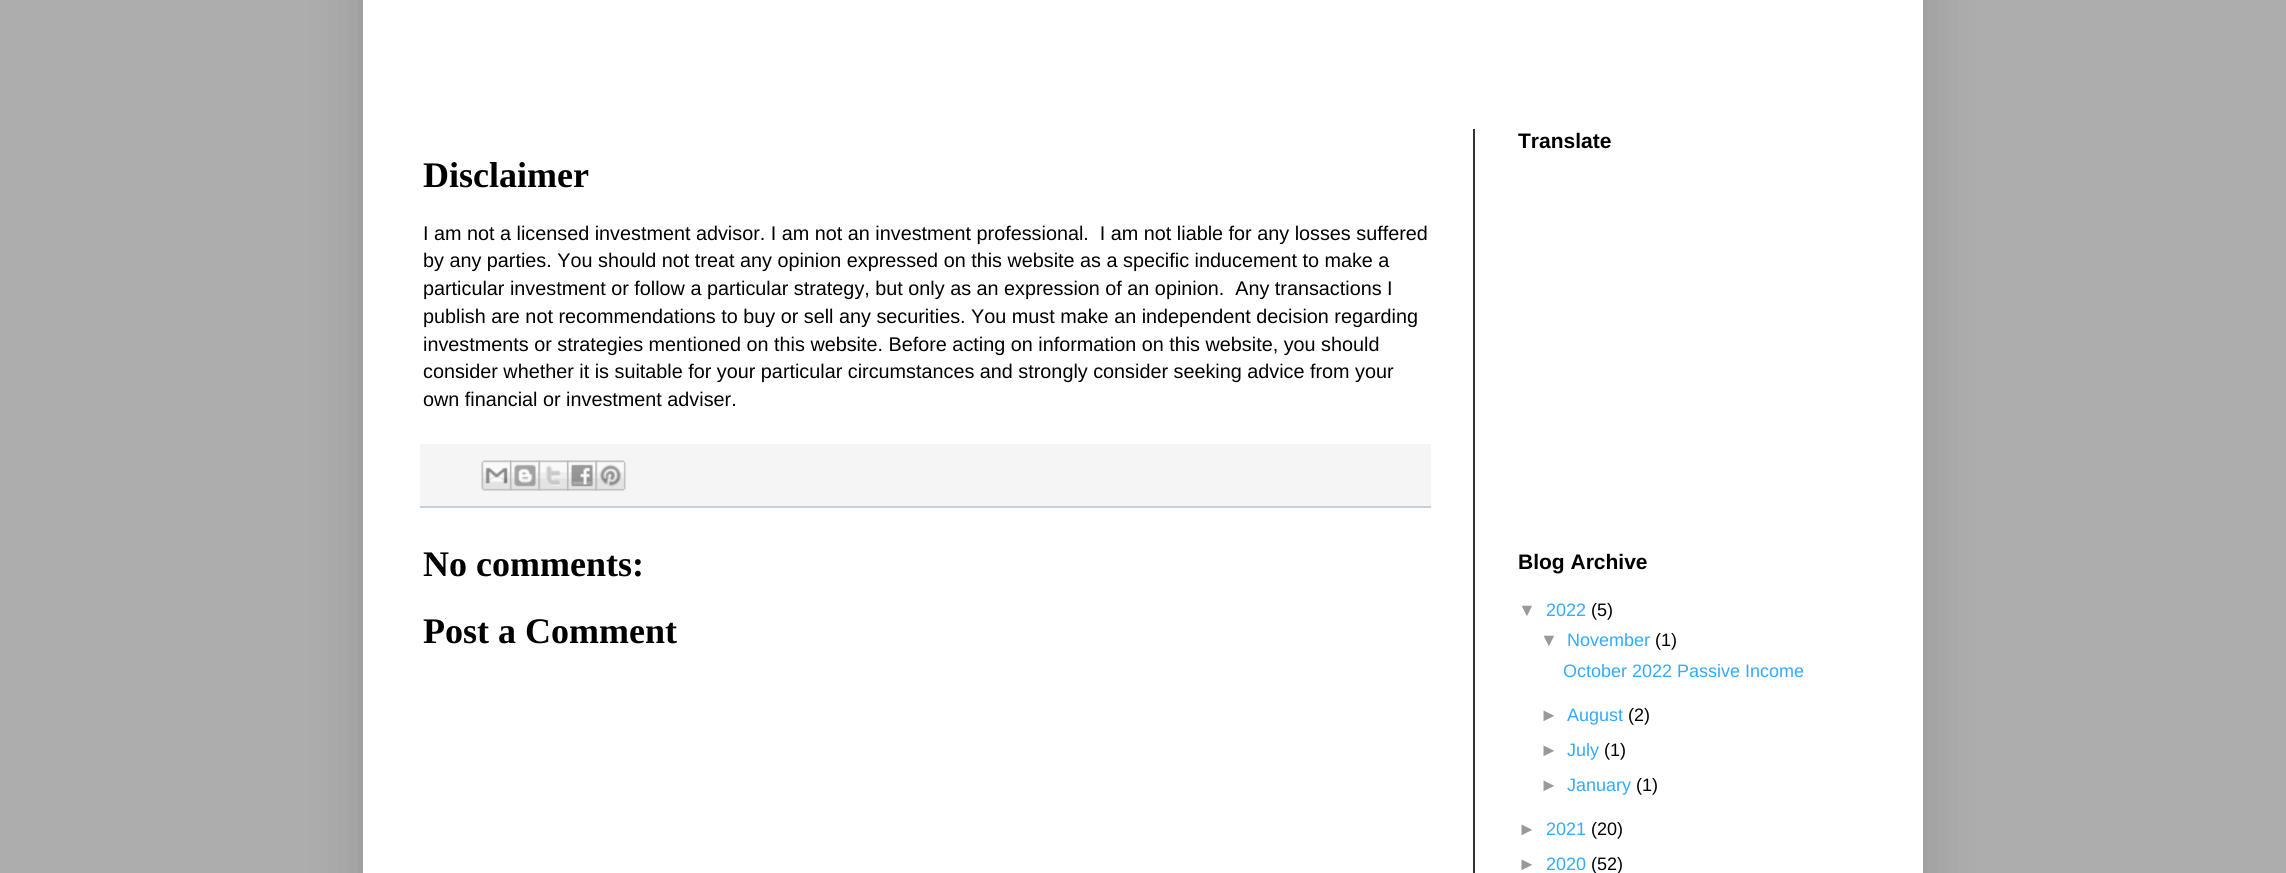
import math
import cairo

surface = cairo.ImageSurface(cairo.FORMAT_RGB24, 2286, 873)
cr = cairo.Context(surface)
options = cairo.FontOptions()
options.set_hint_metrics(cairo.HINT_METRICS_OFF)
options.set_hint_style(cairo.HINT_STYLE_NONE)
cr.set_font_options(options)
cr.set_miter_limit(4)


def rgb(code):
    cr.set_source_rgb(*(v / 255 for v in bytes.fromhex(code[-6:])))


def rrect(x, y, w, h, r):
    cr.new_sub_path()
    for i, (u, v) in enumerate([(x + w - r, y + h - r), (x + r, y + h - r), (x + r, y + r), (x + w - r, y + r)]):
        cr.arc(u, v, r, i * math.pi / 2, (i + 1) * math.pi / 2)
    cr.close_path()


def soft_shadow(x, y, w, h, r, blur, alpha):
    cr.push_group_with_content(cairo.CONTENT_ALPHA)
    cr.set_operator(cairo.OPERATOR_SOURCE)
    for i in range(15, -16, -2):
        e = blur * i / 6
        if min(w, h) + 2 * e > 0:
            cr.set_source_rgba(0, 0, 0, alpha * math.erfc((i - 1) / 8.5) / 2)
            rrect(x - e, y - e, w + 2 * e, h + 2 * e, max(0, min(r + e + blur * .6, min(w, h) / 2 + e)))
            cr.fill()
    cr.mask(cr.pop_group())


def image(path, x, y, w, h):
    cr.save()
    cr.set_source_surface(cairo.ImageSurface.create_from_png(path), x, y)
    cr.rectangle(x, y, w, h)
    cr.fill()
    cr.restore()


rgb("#adadad")
cr.paint()
rgb("#000000")
soft_shadow(363, -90, 1560, 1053, 0, 30, 0.15)
for x, y, w, h, color in [
    (363, 0, 1560, 873, "#ffffff"),
    (1473, 129, 2, 744, "#333333"),
    (420, 444, 1011, 62, "#f5f5f5"),
    (420, 506, 1011, 2, "#bfd4dd"),
]:
    rgb(color)
    cr.rectangle(x, y, w, h)
    cr.fill()
image("img/1.png", 481, 460, 31, 31)
image("img/2.png", 510, 460, 30, 31)
image("img/3.png", 538, 460, 31, 31)
image("img/4.png", 567, 460, 30, 31)
image("img/5.png", 595, 460, 31, 31)
cr.select_font_face("Liberation Serif", cairo.FONT_SLANT_NORMAL, cairo.FONT_WEIGHT_BOLD)
cr.set_font_size(36)
rgb("#000000")
cr.move_to(423, 187)
cr.show_text("Disclaimer")
cr.select_font_face("Liberation Sans")
cr.set_font_size(19.8)
for x, y, s in [
    (423, 240, "I am not a licensed investment advisor. I am not an investment professional.  I am not liable for any losses suffered"),
    (423, 267, "by any parties. You should not treat any opinion expressed on this website as a specific inducement to make a"),
    (423, 295, "particular investment or follow a particular strategy, but only as an expression of an opinion.  Any transactions I"),
    (423, 323, "publish are not recommendations to buy or sell any securities. You must make an independent decision regarding"),
    (423, 351, "investments or strategies mentioned on this website. Before acting on information on this website, you should"),
    (423, 378, "consider whether it is suitable for your particular circumstances and strongly consider seeking advice from your"),
    (423, 406, "own financial or investment adviser."),
]:
    cr.move_to(x, y)
    cr.show_text(s)
cr.select_font_face("Liberation Serif", cairo.FONT_SLANT_NORMAL, cairo.FONT_WEIGHT_BOLD)
cr.set_font_size(36)
cr.move_to(423, 576)
cr.show_text("No comments:")
cr.move_to(423, 643)
cr.show_text("Post a Comment")
cr.select_font_face("Liberation Sans", cairo.FONT_SLANT_NORMAL, cairo.FONT_WEIGHT_BOLD)
cr.set_font_size(21)
cr.move_to(1518, 148)
cr.show_text("Translate")
cr.move_to(1518, 569)
cr.show_text("Blog Archive")
cr.select_font_face("Liberation Sans")
cr.set_font_size(18)
rgb("#999999")
cr.move_to(1518, 616)
cr.show_text("▼")
rgb("#32aaff")
cr.move_to(1546, 616)
cr.show_text("2022")
rgb("#000000")
cr.move_to(1591, 616)
cr.show_text("(5)")
rgb("#999999")
cr.move_to(1540, 646)
cr.show_text("▼")
rgb("#32aaff")
cr.move_to(1567, 646)
cr.show_text("November")
rgb("#000000")
cr.move_to(1655, 646)
cr.show_text("(1)")
rgb("#32aaff")
cr.move_to(1563, 677)
cr.show_text("October 2022 Passive Income")
rgb("#999999")
cr.move_to(1540, 721)
cr.show_text("►")
rgb("#32aaff")
cr.move_to(1567, 721)
cr.show_text("August")
rgb("#000000")
cr.move_to(1628, 721)
cr.show_text("(2)")
rgb("#999999")
cr.move_to(1540, 756)
cr.show_text("►")
rgb("#32aaff")
cr.move_to(1567, 756)
cr.show_text("July")
rgb("#000000")
cr.move_to(1604, 756)
cr.show_text("(1)")
rgb("#999999")
cr.move_to(1540, 791)
cr.show_text("►")
rgb("#32aaff")
cr.move_to(1567, 791)
cr.show_text("January")
rgb("#000000")
cr.move_to(1636, 791)
cr.show_text("(1)")
rgb("#999999")
cr.move_to(1518, 835)
cr.show_text("►")
rgb("#32aaff")
cr.move_to(1546, 835)
cr.show_text("2021")
rgb("#000000")
cr.move_to(1591, 835)
cr.show_text("(20)")
rgb("#999999")
cr.move_to(1518, 870)
cr.show_text("►")
rgb("#32aaff")
cr.move_to(1546, 870)
cr.show_text("2020")
rgb("#000000")
cr.move_to(1591, 870)
cr.show_text("(52)")
surface.write_to_png("page.png")
